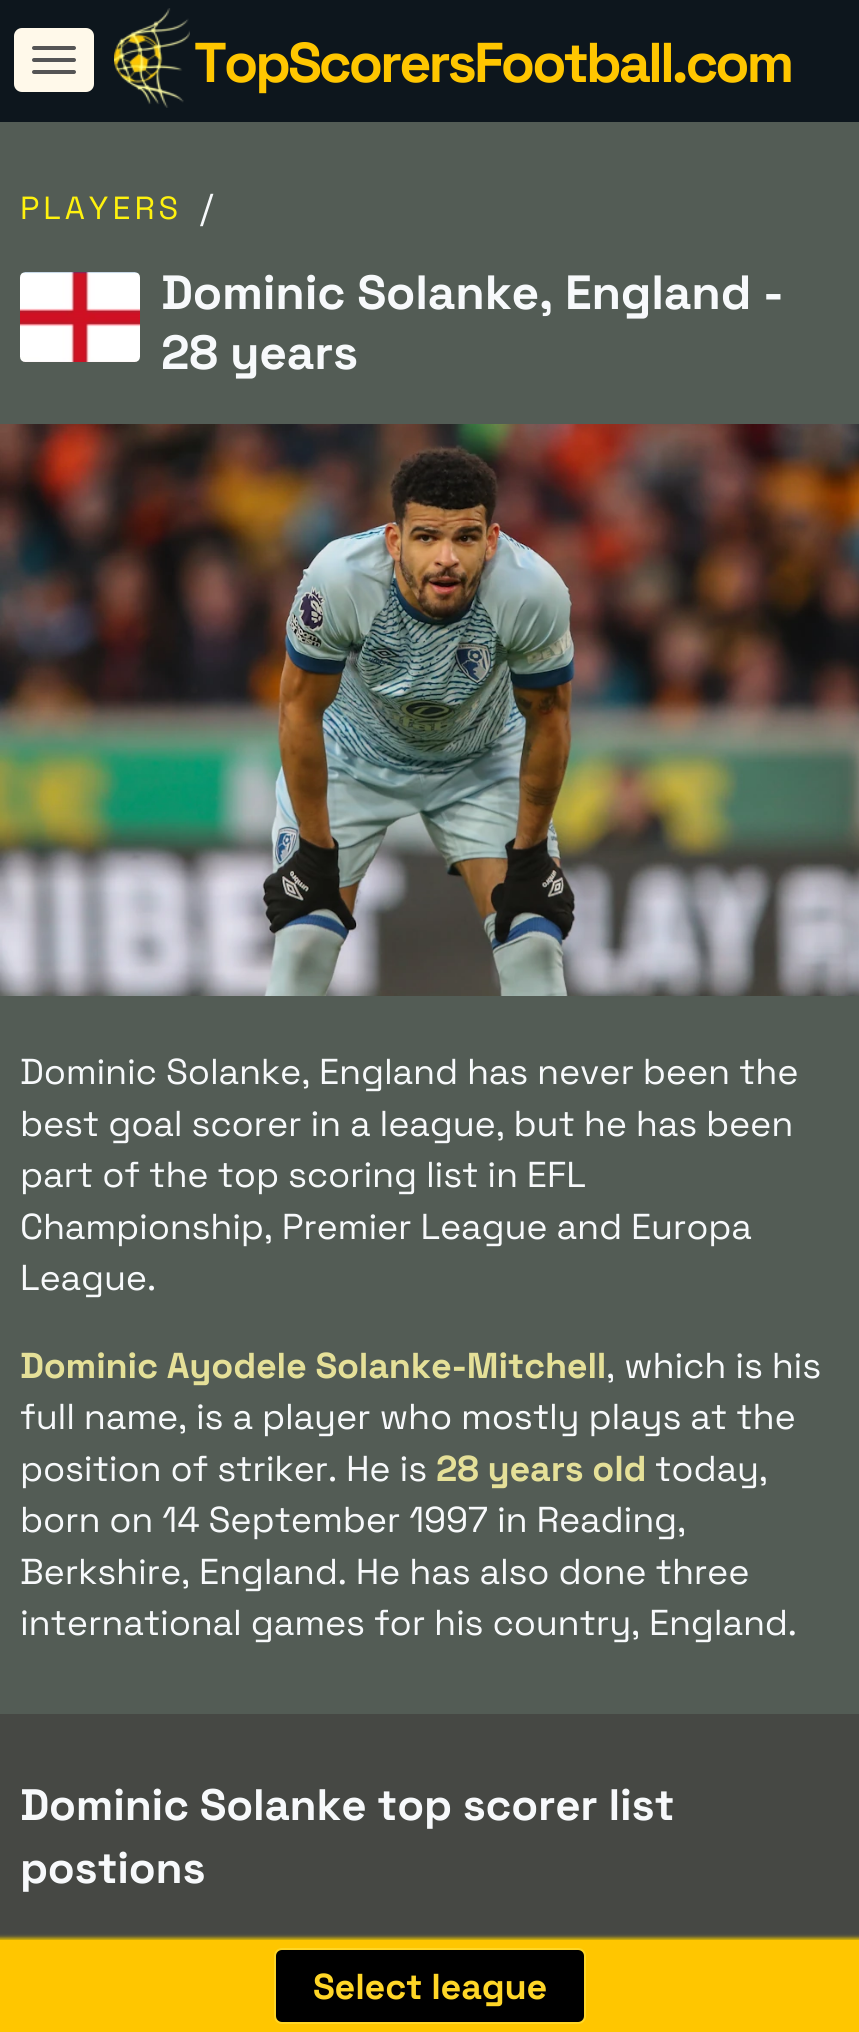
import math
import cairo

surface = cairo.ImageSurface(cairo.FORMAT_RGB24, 859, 2032)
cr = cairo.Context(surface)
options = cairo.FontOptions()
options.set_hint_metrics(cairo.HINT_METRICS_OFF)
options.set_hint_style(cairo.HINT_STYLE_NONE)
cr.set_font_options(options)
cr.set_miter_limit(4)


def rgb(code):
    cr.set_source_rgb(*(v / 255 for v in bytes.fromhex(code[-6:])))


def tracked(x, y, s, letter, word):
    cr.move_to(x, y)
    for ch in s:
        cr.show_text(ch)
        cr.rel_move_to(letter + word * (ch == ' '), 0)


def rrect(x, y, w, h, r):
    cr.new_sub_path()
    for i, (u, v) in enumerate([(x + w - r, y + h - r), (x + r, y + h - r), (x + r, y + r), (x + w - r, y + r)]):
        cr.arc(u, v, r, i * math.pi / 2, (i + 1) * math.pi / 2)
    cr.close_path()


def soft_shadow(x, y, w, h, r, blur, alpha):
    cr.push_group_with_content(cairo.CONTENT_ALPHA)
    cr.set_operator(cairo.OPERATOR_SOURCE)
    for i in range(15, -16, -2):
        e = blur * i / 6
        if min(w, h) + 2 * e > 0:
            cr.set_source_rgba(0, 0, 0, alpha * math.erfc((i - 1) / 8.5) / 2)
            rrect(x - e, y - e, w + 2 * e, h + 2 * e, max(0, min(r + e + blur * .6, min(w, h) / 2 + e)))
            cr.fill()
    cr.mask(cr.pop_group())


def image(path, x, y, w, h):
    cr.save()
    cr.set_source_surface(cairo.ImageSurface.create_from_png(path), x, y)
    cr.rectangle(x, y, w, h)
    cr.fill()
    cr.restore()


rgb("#0d161d")
cr.paint()
rgb("#fff9ea")
rrect(14, 28, 80, 64, 8)
cr.fill()
rgb("#555555")
rrect(32, 46, 44, 4, 2)
cr.fill()
rrect(32, 58, 44, 4, 2)
cr.fill()
rrect(32, 70, 44, 4, 2)
cr.fill()
image("img/1.png", 114, 8, 76, 100)
rgb("#535c55")
cr.rectangle(0, 122, 859, 1592)
cr.fill()
image("img/2.png", 20, 272, 120, 90)
image("img/3.png", 0, 424, 859, 572)
rgb("#464844")
cr.rectangle(0, 1714, 859, 226)
cr.fill()
rgb("#e9c300")
soft_shadow(-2, 1938, 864, 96, 0, 2, 1)
rgb("#ffc600")
cr.rectangle(0, 1940, 859, 92)
cr.fill()
rgb("#000000")
rrect(275, 1949, 310, 74, 7)
cr.fill_preserve()
rgb("#ffd627")
cr.stroke()
cr.select_font_face("Space Grotesk", cairo.FONT_SLANT_NORMAL, cairo.FONT_WEIGHT_BOLD)
cr.set_font_size(56)
rgb("#ffc600")
tracked(194, 82, "TopScorersFootball.com", -3, 0)
cr.select_font_face("Space Grotesk")
cr.set_font_size(32)
rgb("#fff20e")
tracked(20, 219, "PLAYERS", 4, 0)
cr.set_font_size(36)
rgb("#f7f9fb")
tracked(200, 219, "/", -0.2, 0)
cr.select_font_face("Space Grotesk", cairo.FONT_SLANT_NORMAL, cairo.FONT_WEIGHT_BOLD)
cr.set_font_size(48)
tracked(161, 309, "Dominic Solanke, England -", -0.2, 0)
tracked(161, 369, "28 years", -0.2, 0)
cr.select_font_face("Space Grotesk")
cr.set_font_size(36)
for x, y, s in [
    (20, 1084, "Dominic Solanke, England has never been the"),
    (20, 1136, "best goal scorer in a league, but he has been"),
    (20, 1187, "part of the top scoring list in EFL"),
    (20, 1239, "Championship, Premier League and Europa"),
    (20, 1290, "League."),
]:
    tracked(x, y, s, -0.2, 0)
cr.select_font_face("Space Grotesk", cairo.FONT_SLANT_NORMAL, cairo.FONT_WEIGHT_BOLD)
rgb("#e5e098")
tracked(20, 1378, "Dominic Ayodele Solanke-Mitchell", -0.2, 0)
cr.select_font_face("Space Grotesk")
rgb("#f7f9fb")
for x, y, s in [
    (606, 1378, ", which is his"),
    (20, 1429, "full name, is a player who mostly plays at the"),
    (20, 1481, "position of striker. He is"),
]:
    tracked(x, y, s, -0.2, 0)
cr.select_font_face("Space Grotesk", cairo.FONT_SLANT_NORMAL, cairo.FONT_WEIGHT_BOLD)
rgb("#e5e098")
tracked(436, 1481, "28 years old", -0.2, 0)
cr.select_font_face("Space Grotesk")
rgb("#f7f9fb")
for x, y, s in [
    (655, 1481, "today,"),
    (20, 1532, "born on 14 September 1997 in Reading,"),
    (20, 1584, "Berkshire, England. He has also done three"),
    (20, 1635, "international games for his country, England."),
]:
    tracked(x, y, s, -0.2, 0)
cr.select_font_face("Space Grotesk", cairo.FONT_SLANT_NORMAL, cairo.FONT_WEIGHT_BOLD)
cr.set_font_size(44)
tracked(20, 1820, "Dominic Solanke top scorer list", -0.2, 0)
tracked(20, 1883, "postions", -0.2, 0)
cr.set_font_size(36)
rgb("#ffd627")
tracked(313, 1999, "Select league", -0.2, 0)
surface.write_to_png("page.png")
